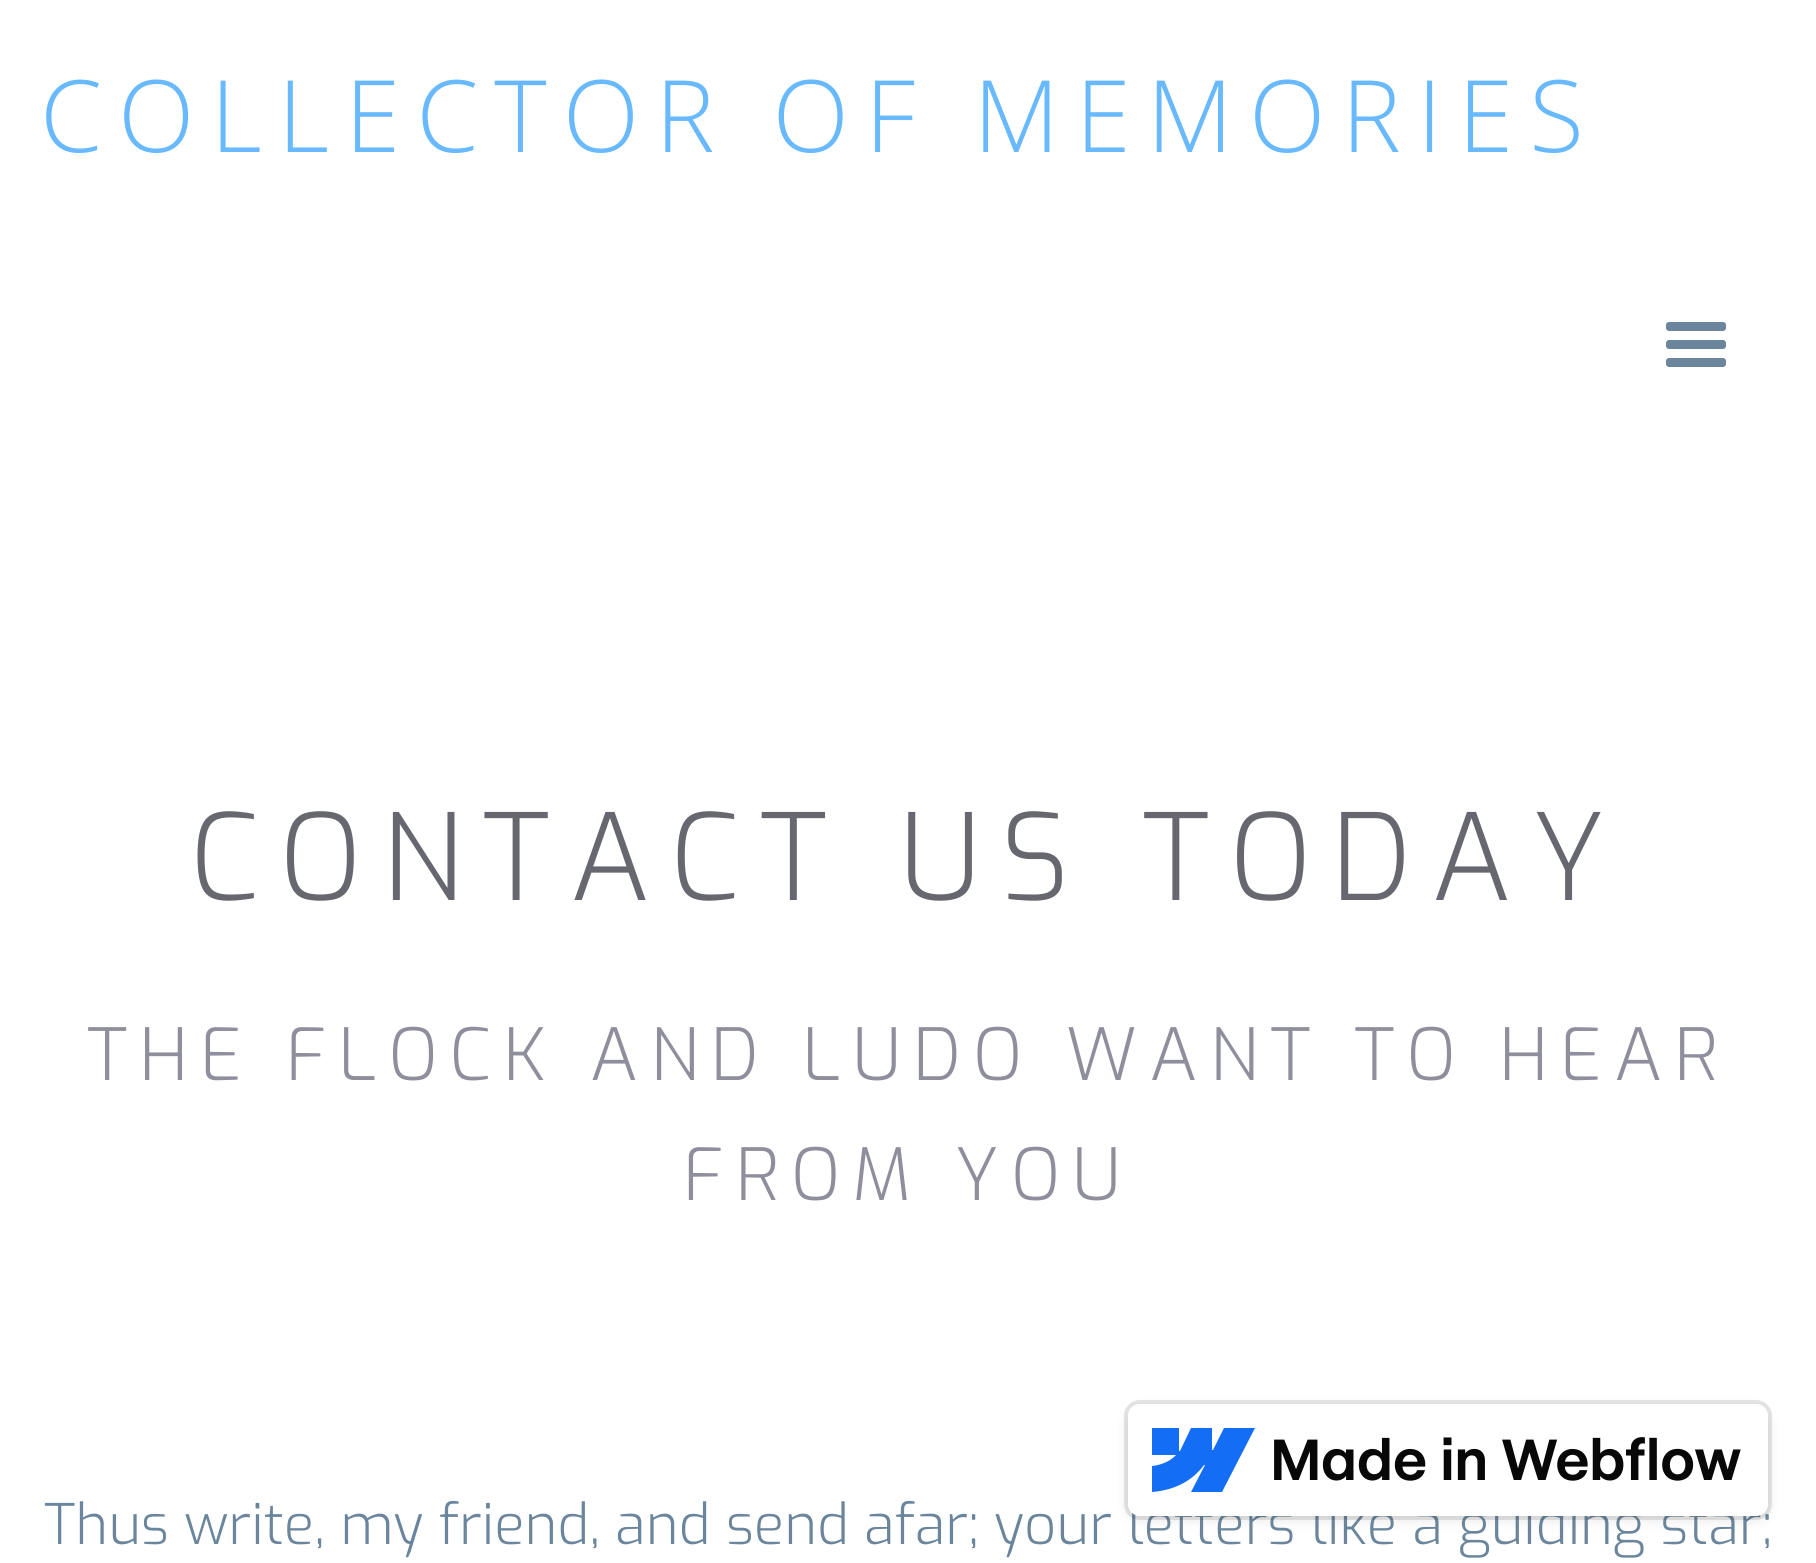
import math
import cairo

surface = cairo.ImageSurface(cairo.FORMAT_RGB24, 1816, 1563)
cr = cairo.Context(surface)
options = cairo.FontOptions()
options.set_hint_metrics(cairo.HINT_METRICS_OFF)
options.set_hint_style(cairo.HINT_STYLE_NONE)
cr.set_font_options(options)
cr.set_miter_limit(4)


def rgb(code):
    cr.set_source_rgb(*(v / 255 for v in bytes.fromhex(code[-6:])))


def tracked(x, y, s, letter, word):
    cr.move_to(x, y)
    for ch in s:
        cr.show_text(ch)
        cr.rel_move_to(letter + word * (ch == ' '), 0)


def rrect(x, y, w, h, r):
    cr.new_sub_path()
    for i, (u, v) in enumerate([(x + w - r, y + h - r), (x + r, y + h - r), (x + r, y + r), (x + w - r, y + r)]):
        cr.arc(u, v, r, i * math.pi / 2, (i + 1) * math.pi / 2)
    cr.close_path()


def soft_shadow(x, y, w, h, r, blur, alpha):
    cr.push_group_with_content(cairo.CONTENT_ALPHA)
    cr.set_operator(cairo.OPERATOR_SOURCE)
    for i in range(15, -16, -2):
        e = blur * i / 6
        if min(w, h) + 2 * e > 0:
            cr.set_source_rgba(0, 0, 0, alpha * math.erfc((i - 1) / 8.5) / 2)
            rrect(x - e, y - e, w + 2 * e, h + 2 * e, max(0, min(r + e + blur * .6, min(w, h) / 2 + e)))
            cr.fill()
    cr.mask(cr.pop_group())


def image(path, x, y, w, h):
    cr.save()
    cr.set_source_surface(cairo.ImageSurface.create_from_png(path), x, y)
    cr.rectangle(x, y, w, h)
    cr.fill()
    cr.restore()


rgb("#ffffff")
cr.paint()
image("img/1.png", 1666, 322, 60, 45)
rgb("#000000")
soft_shadow(1128, 1408, 640, 112, 12, 6, 0.1)
cr.select_font_face("Open Sans Light")
cr.set_font_size(100)
rgb("#69b9ff")
tracked(40, 152, "COLLECTOR OF MEMORIES", 16, 0)
cr.select_font_face("Exo Light")
cr.set_font_size(120)
rgb("#676770")
tracked(190, 900, "CONTACT US TODAY", 20, 0)
cr.set_font_size(72)
rgb("#8e8e9c")
tracked(87, 1080, "THE FLOCK AND LUDO WANT TO HEAR", 12, 0)
tracked(683, 1200, "FROM YOU", 12, 0)
cr.set_font_size(56)
rgb("#6a859c")
cr.move_to(44, 1544)
cr.show_text("Thus write, my friend, and send afar; your letters like a guiding star;")
rrect(1126, 1402, 644, 116, 14)
cr.set_source_rgba(0, 0, 0, 0.1)
cr.set_line_width(4)
cr.stroke()
rgb("#ffffff")
rrect(1128, 1404, 640, 112, 12)
cr.fill()
rgb("#146ef5")
cr.set_fill_rule(cairo.FILL_RULE_EVEN_ODD)
cr.new_path()
cr.move_to(1255, 1428)
cr.line_to(1222, 1492)
cr.line_to(1191, 1492)
cr.line_to(1205, 1465)
cr.line_to(1204, 1465)
cr.curve_to(1193, 1480, 1176, 1490, 1152, 1492)
cr.line_to(1152, 1466)
cr.curve_to(1152, 1466, 1167, 1465, 1176, 1455)
cr.line_to(1152, 1455)
cr.line_to(1152, 1428)
cr.line_to(1179, 1428)
cr.line_to(1179, 1451)
cr.line_to(1180, 1451)
cr.line_to(1191, 1428)
cr.line_to(1212, 1428)
cr.line_to(1212, 1450)
cr.line_to(1213, 1450)
cr.line_to(1224, 1428)
cr.close_path()
cr.fill()
image("img/2.png", 1274, 1437, 467, 44)
surface.write_to_png("page.png")
